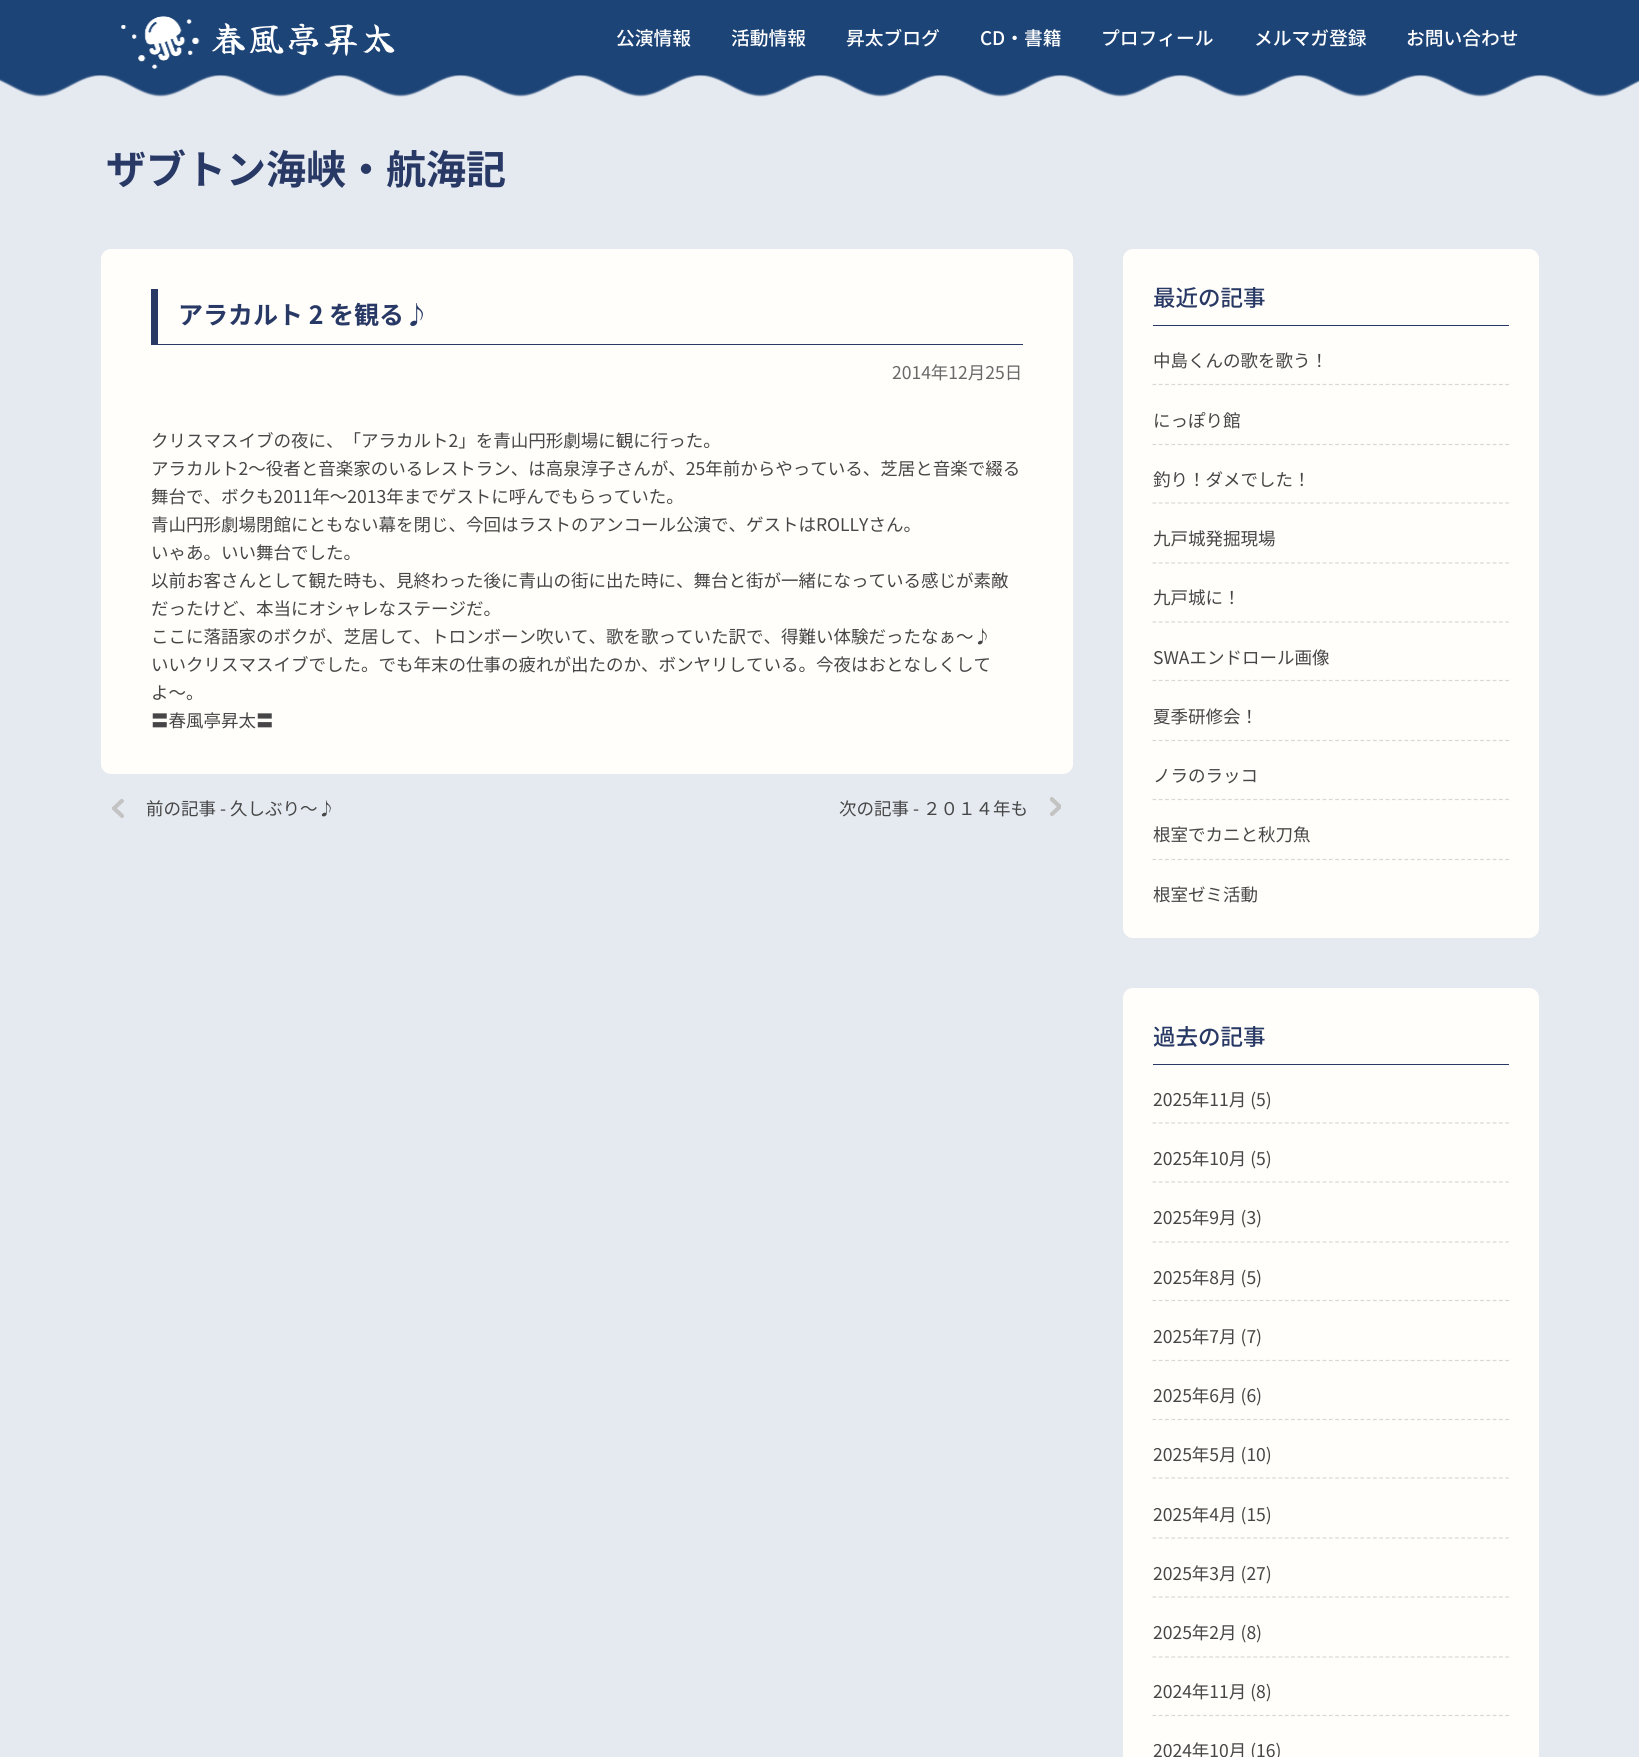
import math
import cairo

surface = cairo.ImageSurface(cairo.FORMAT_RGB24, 1639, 1757)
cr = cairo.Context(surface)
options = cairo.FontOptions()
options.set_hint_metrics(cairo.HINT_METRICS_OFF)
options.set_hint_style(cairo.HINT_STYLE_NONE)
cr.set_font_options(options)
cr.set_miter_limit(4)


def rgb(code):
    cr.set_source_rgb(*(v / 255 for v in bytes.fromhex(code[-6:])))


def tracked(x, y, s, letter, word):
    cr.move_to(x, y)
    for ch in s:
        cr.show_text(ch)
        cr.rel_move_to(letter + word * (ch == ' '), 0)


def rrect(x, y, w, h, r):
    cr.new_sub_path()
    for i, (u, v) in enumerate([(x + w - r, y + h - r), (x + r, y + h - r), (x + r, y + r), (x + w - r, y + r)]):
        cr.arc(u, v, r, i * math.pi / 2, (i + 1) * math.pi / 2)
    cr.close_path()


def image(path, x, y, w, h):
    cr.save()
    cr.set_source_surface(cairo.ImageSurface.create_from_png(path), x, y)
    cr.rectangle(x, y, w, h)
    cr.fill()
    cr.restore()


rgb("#e5e9f0")
cr.paint()
rgb("#1d4477")
cr.rectangle(0, 0, 1639, 75)
cr.fill()
image("img/1.png", 121, 16, 79, 53)
image("img/2.png", 0, 75, 1639, 22)
rgb("#fffefb")
rrect(101, 249, 972, 525, 10)
cr.fill()
rgb("#293965")
cr.rectangle(151, 344, 872, 1)
cr.fill()
cr.rectangle(151, 289, 7, 56)
cr.fill()
image("img/3.png", 112, 799, 12, 19)
image("img/4.png", 1050, 797, 11, 19)
rgb("#fffefb")
rrect(1123, 249, 416, 689, 10)
cr.fill()
rgb("#293965")
cr.rectangle(1153, 325, 356, 1)
cr.fill()
cr.new_path()
cr.move_to(1152.5, 384.5)
cr.line_to(1509, 384.5)
rgb("#dad7d5")
cr.set_line_width(1.2)
cr.set_dash([3.75, 2.55])
cr.stroke()
cr.new_path()
cr.move_to(1152.5, 444.5)
cr.line_to(1509, 444.5)
cr.stroke()
cr.new_path()
cr.move_to(1152.5, 503)
cr.line_to(1509, 503)
cr.stroke()
cr.new_path()
cr.move_to(1152.5, 563)
cr.line_to(1509, 563)
cr.stroke()
cr.new_path()
cr.move_to(1152.5, 622)
cr.line_to(1509, 622)
cr.stroke()
cr.new_path()
cr.move_to(1152.5, 680.5)
cr.line_to(1509, 680.5)
cr.stroke()
cr.new_path()
cr.move_to(1152.5, 740.5)
cr.line_to(1509, 740.5)
cr.stroke()
cr.new_path()
cr.move_to(1152.5, 799.5)
cr.line_to(1509, 799.5)
cr.stroke()
cr.new_path()
cr.move_to(1152.5, 859.5)
cr.line_to(1509, 859.5)
cr.stroke()
rgb("#fffefb")
rrect(1123, 988, 416, 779, 10)
cr.fill()
rgb("#293965")
cr.rectangle(1153, 1064, 356, 1)
cr.fill()
cr.new_path()
cr.move_to(1152.5, 1123)
cr.line_to(1509, 1123)
rgb("#dad7d5")
cr.stroke()
cr.new_path()
cr.move_to(1152.5, 1182)
cr.line_to(1509, 1182)
cr.stroke()
cr.new_path()
cr.move_to(1152.5, 1242)
cr.line_to(1509, 1242)
cr.stroke()
cr.new_path()
cr.move_to(1152.5, 1300.5)
cr.line_to(1509, 1300.5)
cr.stroke()
cr.new_path()
cr.move_to(1152.5, 1360.5)
cr.line_to(1509, 1360.5)
cr.stroke()
cr.new_path()
cr.move_to(1152.5, 1419.5)
cr.line_to(1509, 1419.5)
cr.stroke()
cr.new_path()
cr.move_to(1152.5, 1478)
cr.line_to(1509, 1478)
cr.stroke()
cr.new_path()
cr.move_to(1152.5, 1538)
cr.line_to(1509, 1538)
cr.stroke()
cr.new_path()
cr.move_to(1152.5, 1597)
cr.line_to(1509, 1597)
cr.stroke()
cr.new_path()
cr.move_to(1152.5, 1657)
cr.line_to(1509, 1657)
cr.stroke()
cr.new_path()
cr.move_to(1152.5, 1715.5)
cr.line_to(1509, 1715.5)
cr.stroke()
cr.select_font_face("Yuji Syuku")
cr.set_font_size(35)
rgb("#ffffff")
tracked(211, 52, "春風亭昇太", 2.5, 0)
cr.select_font_face("Noto Sans JP Medium")
cr.set_font_size(18.75)
for x, y, s in [
    (616, 45, "公演情報"),
    (731, 45, "活動情報"),
    (846, 45, "昇太ブログ"),
    (980, 45, "CD・書籍"),
    (1101, 45, "プロフィール"),
    (1254, 45, "メルマガ登録"),
    (1406, 45, "お問い合わせ"),
]:
    cr.move_to(x, y)
    cr.show_text(s)
cr.select_font_face("Noto Sans JP", cairo.FONT_SLANT_NORMAL, cairo.FONT_WEIGHT_BOLD)
cr.set_font_size(40)
rgb("#293965")
cr.move_to(106, 184)
cr.show_text("ザブトン海峡・航海記")
cr.set_font_size(25)
cr.move_to(178, 324)
cr.show_text("アラカルト 2 を観る♪")
cr.select_font_face("Noto Sans JP")
cr.set_font_size(17.5)
rgb("#696969")
cr.move_to(892, 379)
cr.show_text("2014年12月25日")
rgb("#464646")
for x, y, s in [
    (151, 447, "クリスマスイブの夜に、「アラカルト2」を青山円形劇場に観に行った。"),
    (151, 475, "アラカルト2〜役者と音楽家のいるレストラン、は高泉淳子さんが、25年前からやっている、芝居と音楽で綴る"),
    (151, 503, "舞台で、ボクも2011年〜2013年までゲストに呼んでもらっていた。"),
    (151, 531, "青山円形劇場閉館にともない幕を閉じ、今回はラストのアンコール公演で、ゲストはROLLYさん。"),
    (151, 559, "いゃあ。いい舞台でした。"),
    (151, 587, "以前お客さんとして観た時も、見終わった後に青山の街に出た時に、舞台と街が一緒になっている感じが素敵"),
    (151, 615, "だったけど、本当にオシャレなステージだ。"),
    (151, 643, "ここに落語家のボクが、芝居して、トロンボーン吹いて、歌を歌っていた訳で、得難い体験だったなぁ〜♪"),
    (151, 671, "いいクリスマスイブでした。でも年末の仕事の疲れが出たのか、ボンヤリしている。今夜はおとなしくして"),
    (151, 699, "よ〜。"),
    (151, 727, "〓春風亭昇太〓"),
    (146, 815, "前の記事 - 久しぶり〜♪"),
    (839, 815, "次の記事 - ２０１４年も"),
]:
    cr.move_to(x, y)
    cr.show_text(s)
cr.select_font_face("Noto Sans JP Medium")
cr.set_font_size(22.5)
rgb("#293965")
cr.move_to(1153, 306)
cr.show_text("最近の記事")
cr.select_font_face("Noto Sans JP")
cr.set_font_size(17.5)
rgb("#464646")
for x, y, s in [
    (1153, 367, "中島くんの歌を歌う！"),
    (1153, 427, "にっぽり館"),
    (1153, 486, "釣り！ダメでした！"),
    (1153, 545, "九戸城発掘現場"),
    (1153, 604, "九戸城に！"),
    (1153, 664, "SWAエンドロール画像"),
    (1153, 723, "夏季研修会！"),
    (1153, 782, "ノラのラッコ"),
    (1153, 841, "根室でカニと秋刀魚"),
    (1153, 901, "根室ゼミ活動"),
]:
    cr.move_to(x, y)
    cr.show_text(s)
cr.select_font_face("Noto Sans JP Medium")
cr.set_font_size(22.5)
rgb("#293965")
cr.move_to(1153, 1045)
cr.show_text("過去の記事")
cr.select_font_face("Noto Sans JP")
cr.set_font_size(17.5)
rgb("#464646")
for x, y, s in [
    (1153, 1106, "2025年11月 (5)"),
    (1153, 1165, "2025年10月 (5)"),
    (1153, 1224, "2025年9月 (3)"),
    (1153, 1284, "2025年8月 (5)"),
    (1153, 1343, "2025年7月 (7)"),
    (1153, 1402, "2025年6月 (6)"),
    (1153, 1461, "2025年5月 (10)"),
    (1153, 1521, "2025年4月 (15)"),
    (1153, 1580, "2025年3月 (27)"),
    (1153, 1639, "2025年2月 (8)"),
    (1153, 1698, "2024年11月 (8)"),
    (1153, 1757, "2024年10月 (16)"),
]:
    cr.move_to(x, y)
    cr.show_text(s)
surface.write_to_png("page.png")
